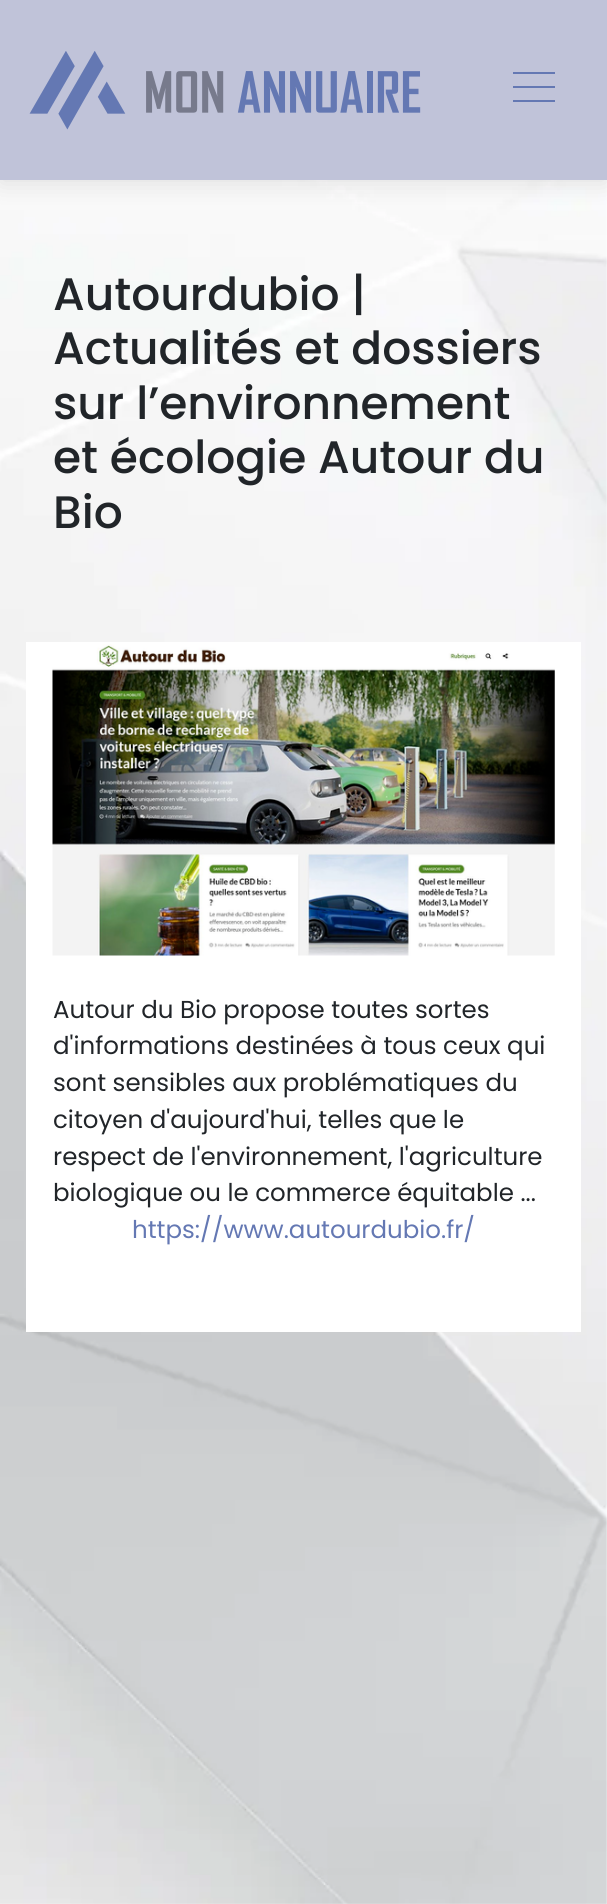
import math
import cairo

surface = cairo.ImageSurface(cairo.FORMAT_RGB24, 607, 1904)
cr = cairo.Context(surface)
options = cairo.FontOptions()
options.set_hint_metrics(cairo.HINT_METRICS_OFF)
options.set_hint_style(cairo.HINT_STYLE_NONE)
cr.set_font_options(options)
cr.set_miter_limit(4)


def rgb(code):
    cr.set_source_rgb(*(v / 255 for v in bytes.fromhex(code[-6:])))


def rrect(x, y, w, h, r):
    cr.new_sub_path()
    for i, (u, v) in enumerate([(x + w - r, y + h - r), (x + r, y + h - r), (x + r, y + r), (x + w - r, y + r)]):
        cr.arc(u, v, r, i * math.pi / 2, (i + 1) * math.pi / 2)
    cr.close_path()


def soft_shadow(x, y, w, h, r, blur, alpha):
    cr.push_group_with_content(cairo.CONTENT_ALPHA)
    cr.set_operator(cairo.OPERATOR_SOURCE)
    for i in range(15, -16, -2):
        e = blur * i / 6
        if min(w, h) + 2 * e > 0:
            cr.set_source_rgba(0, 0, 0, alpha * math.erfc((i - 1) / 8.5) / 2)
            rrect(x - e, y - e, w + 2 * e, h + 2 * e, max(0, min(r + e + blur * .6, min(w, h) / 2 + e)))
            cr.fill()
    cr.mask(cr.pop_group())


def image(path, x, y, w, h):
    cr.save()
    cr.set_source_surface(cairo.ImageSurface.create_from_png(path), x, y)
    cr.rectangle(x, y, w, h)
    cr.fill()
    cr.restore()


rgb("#ffffff")
cr.paint()
image("img/1.png", 0, 180, 607, 1724)
rgb("#000000")
soft_shadow(0, 4, 607, 180, 0, 11.5, 0.1)
rgb("#c0c3d9")
cr.rectangle(0, 0, 607, 180)
cr.fill()
image("img/2.png", 29, 51, 392, 79)
for x, y, w, h, color in [
    (513, 72, 42, 2, "#6478b3"),
    (513, 86, 42, 2, "#6478b3"),
    (513, 100, 42, 2, "#6478b3"),
    (26, 642, 555, 690, "#ffffff"),
]:
    rgb(color)
    cr.rectangle(x, y, w, h)
    cr.fill()
image("img/3.png", 52, 644, 503, 312)
cr.select_font_face("Poppins Medium")
cr.set_font_size(45.5)
rgb("#212529")
for x, y, s in [
    (53, 310, "Autourdubio |"),
    (53, 364, "Actualités et dossiers"),
    (53, 419, "sur l’environnement"),
    (53, 473, "et écologie Autour du"),
    (53, 528, "Bio"),
]:
    cr.move_to(x, y)
    cr.show_text(s)
cr.select_font_face("Poppins")
cr.set_font_size(24.5)
for x, y, s in [
    (53, 1018, "Autour du Bio propose toutes sortes"),
    (53, 1054, "d'informations destinées à tous ceux qui"),
    (53, 1091, "sont sensibles aux problématiques du"),
    (53, 1128, "citoyen d'aujourd'hui, telles que le"),
    (53, 1165, "respect de l'environnement, l'agriculture"),
    (53, 1201, "biologique ou le commerce équitable ..."),
]:
    cr.move_to(x, y)
    cr.show_text(s)
rgb("#6478b3")
cr.move_to(132, 1238)
cr.show_text("https://www.autourdubio.fr/")
surface.write_to_png("page.png")
